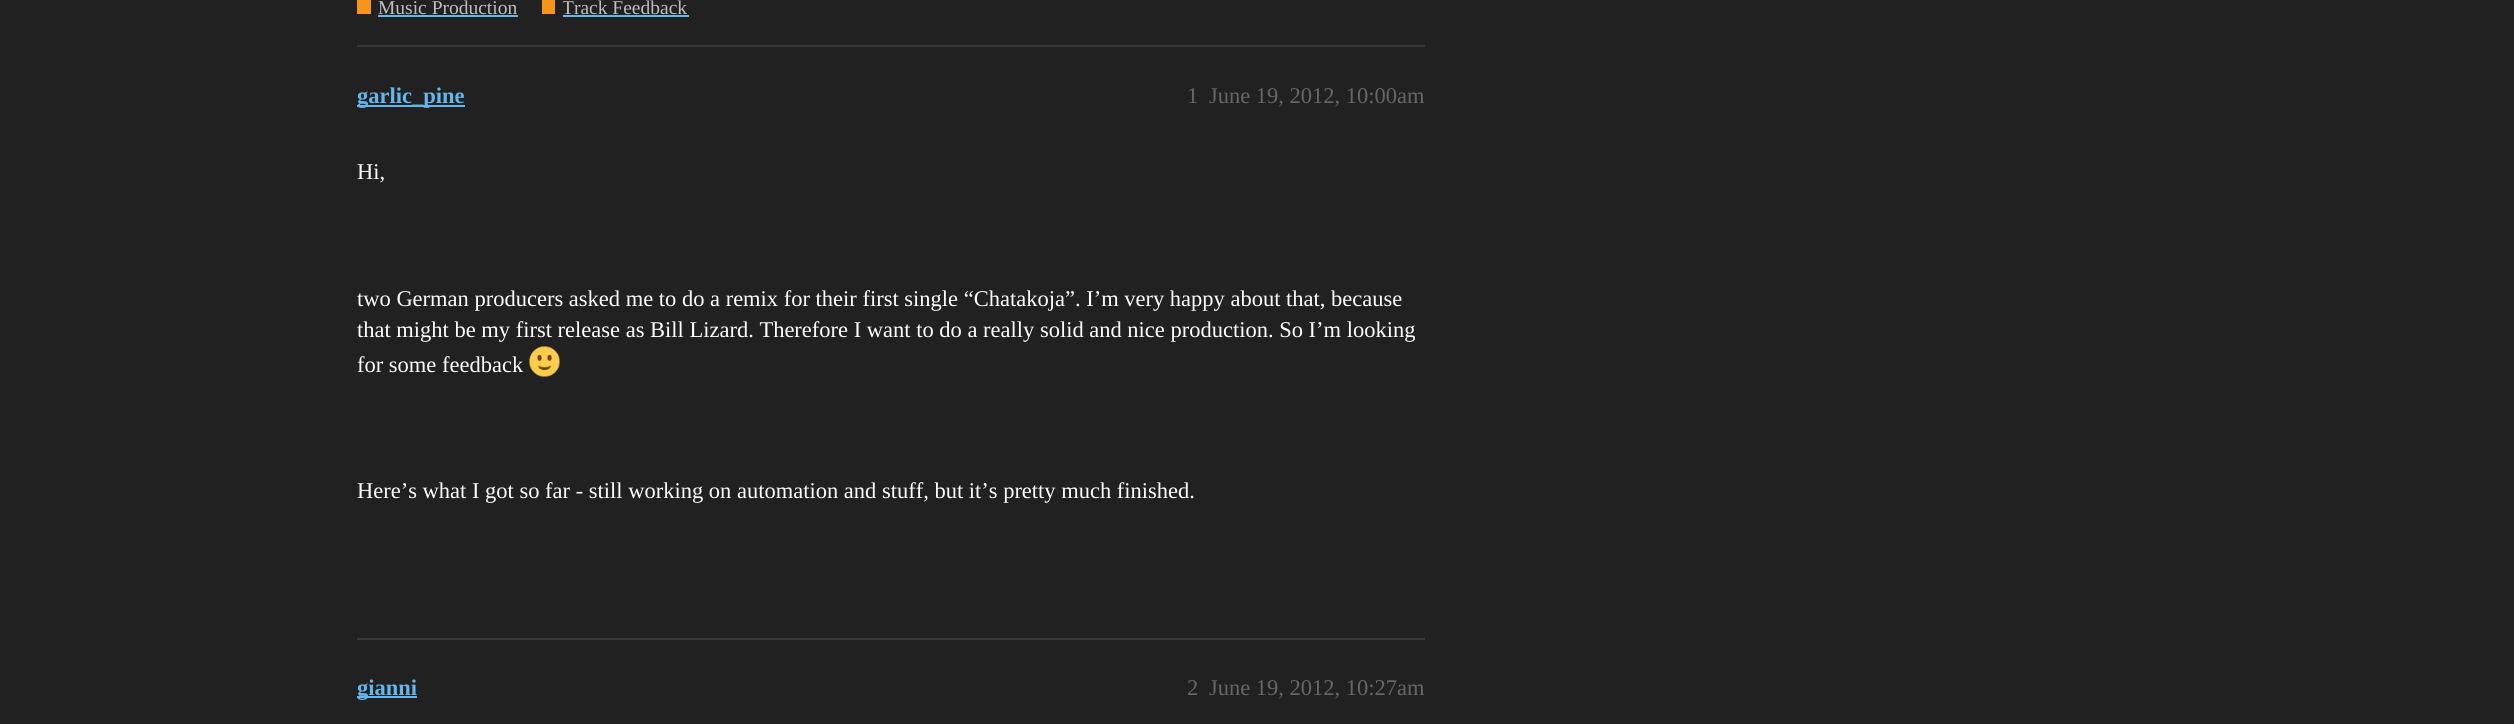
import math
import cairo

surface = cairo.ImageSurface(cairo.FORMAT_RGB24, 2514, 724)
cr = cairo.Context(surface)
options = cairo.FontOptions()
options.set_hint_metrics(cairo.HINT_METRICS_OFF)
options.set_hint_style(cairo.HINT_STYLE_NONE)
cr.set_font_options(options)
cr.set_miter_limit(4)


def rgb(code):
    cr.set_source_rgb(*(v / 255 for v in bytes.fromhex(code[-6:])))


def image(path, x, y, w, h):
    cr.save()
    cr.set_source_surface(cairo.ImageSurface.create_from_png(path), x, y)
    cr.rectangle(x, y, w, h)
    cr.fill()
    cr.restore()


rgb("#212121")
cr.paint()
for x, y, w, h, color in [
    (357, 0, 14, 14, "#f7941d"),
    (378, 15, 140, 2, "#65b6ee"),
    (542, 0, 13, 14, "#f7941d"),
    (563, 15, 126, 2, "#65b6ee"),
    (357, 45, 1068, 2, "#383838"),
    (357, 105, 108, 2, "#65b6ee"),
]:
    rgb(color)
    cr.rectangle(x, y, w, h)
    cr.fill()
image("img/1.png", 529, 346, 31, 31)
rgb("#383838")
cr.rectangle(357, 638, 1068, 2)
cr.fill()
rgb("#65b6ee")
cr.rectangle(357, 696, 60, 2)
cr.fill()
cr.select_font_face("Liberation Serif")
cr.set_font_size(19.5)
rgb("#bfbfbf")
cr.move_to(378, 14)
cr.show_text("Music Production")
cr.save()
cr.rectangle(563, 0, 126, 21)
cr.clip()
cr.move_to(562, 14)
cr.show_text("Track Feedback")
cr.restore()
cr.select_font_face("Liberation Serif", cairo.FONT_SLANT_NORMAL, cairo.FONT_WEIGHT_BOLD)
cr.set_font_size(22.5)
rgb("#65b6ee")
cr.move_to(357, 103)
cr.show_text("garlic_pine")
cr.select_font_face("Liberation Serif")
rgb("#666666")
cr.move_to(1187, 103)
cr.show_text("1")
cr.move_to(1209, 103)
cr.show_text("June 19, 2012, 10:00am")
rgb("#ffffff")
for x, y, s in [
    (357, 179, "Hi,"),
    (357, 306, "two German producers asked me to do a remix for their first single “Chatakoja”. I’m very happy about that, because"),
    (357, 337, "that might be my first release as Bill Lizard. Therefore I want to do a really solid and nice production. So I’m looking"),
    (357, 372, "for some feedback"),
    (357, 498, "Here’s what I got so far - still working on automation and stuff, but it’s pretty much finished."),
]:
    cr.move_to(x, y)
    cr.show_text(s)
cr.select_font_face("Liberation Serif", cairo.FONT_SLANT_NORMAL, cairo.FONT_WEIGHT_BOLD)
rgb("#65b6ee")
cr.move_to(357, 695)
cr.show_text("gianni")
cr.select_font_face("Liberation Serif")
rgb("#666666")
cr.move_to(1187, 695)
cr.show_text("2")
cr.move_to(1209, 695)
cr.show_text("June 19, 2012, 10:27am")
surface.write_to_png("page.png")
